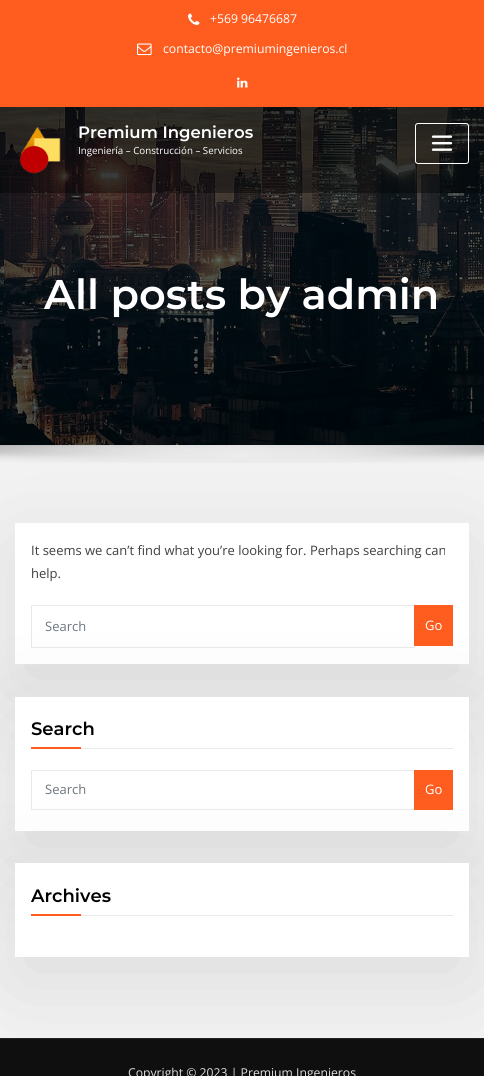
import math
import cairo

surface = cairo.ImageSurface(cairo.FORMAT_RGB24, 484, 1076)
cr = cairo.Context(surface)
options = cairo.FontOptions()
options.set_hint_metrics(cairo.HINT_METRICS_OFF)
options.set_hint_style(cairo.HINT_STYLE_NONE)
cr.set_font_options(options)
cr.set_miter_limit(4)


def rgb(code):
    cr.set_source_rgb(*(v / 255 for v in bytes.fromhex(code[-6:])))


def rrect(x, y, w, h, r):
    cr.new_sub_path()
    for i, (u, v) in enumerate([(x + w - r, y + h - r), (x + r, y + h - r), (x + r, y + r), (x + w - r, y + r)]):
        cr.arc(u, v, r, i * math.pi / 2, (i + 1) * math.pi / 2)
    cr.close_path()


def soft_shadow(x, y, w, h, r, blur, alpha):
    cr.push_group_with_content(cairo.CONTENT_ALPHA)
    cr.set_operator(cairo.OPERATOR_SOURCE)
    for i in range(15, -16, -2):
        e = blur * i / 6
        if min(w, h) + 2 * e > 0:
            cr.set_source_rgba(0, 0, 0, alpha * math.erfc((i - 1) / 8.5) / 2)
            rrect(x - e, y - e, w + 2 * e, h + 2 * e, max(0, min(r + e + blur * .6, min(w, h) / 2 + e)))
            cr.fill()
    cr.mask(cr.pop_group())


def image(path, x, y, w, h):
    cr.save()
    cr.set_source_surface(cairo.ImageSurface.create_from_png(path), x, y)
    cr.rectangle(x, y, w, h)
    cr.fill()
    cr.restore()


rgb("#ff5d20")
cr.paint()
image("img/1.png", 188, 13, 12, 12)
image("img/2.png", 137, 43, 15, 13)
image("img/3.png", 237, 77, 11, 11)
image("img/6.png", 0, 107, 484, 338)
cr.set_source_rgba(0, 0, 0, 0.4)
cr.rectangle(0, 107, 484, 86)
cr.fill()
image("img/4.png", 19, 126, 42, 48)
rrect(415.5, 123.5, 53, 40, 2.5)
rgb("#ffffff")
cr.set_line_width(1)
cr.stroke()
image("img/5.png", 431, 135, 22, 16)
rgb("#f3f3f3")
cr.rectangle(0, 445, 484, 593)
cr.fill()
rgb("#000000")
soft_shadow(15, 548, 454, 141, 0, 49, 0.1)
image("img/7.png", 0, 445, 484, 18)
rgb("#ffffff")
cr.rectangle(15, 523, 454, 141)
cr.fill()
cr.rectangle(31.5, 605.5, 383, 42)
rgb("#e9e9e9")
cr.stroke()
rgb("#000000")
soft_shadow(15, 722, 454, 134, 0, 49, 0.1)
rgb("#ff5d20")
cr.rectangle(414, 605, 39, 41)
cr.fill()
rgb("#ffffff")
cr.rectangle(15, 697, 454, 134)
cr.fill()
rgb("#000000")
soft_shadow(15, 888, 454, 94, 0, 49, 0.1)
rgb("#e9e9e9")
cr.rectangle(81, 748, 372, 1)
cr.fill()
rgb("#ff5d20")
cr.rectangle(31, 747, 50, 2)
cr.fill()
cr.rectangle(31.5, 770.5, 383, 39)
rgb("#e9e9e9")
cr.stroke()
for x, y, w, h, color in [
    (414, 770, 39, 40, "#ff5d20"),
    (15, 863, 454, 94, "#ffffff"),
    (81, 915, 372, 1, "#e9e9e9"),
    (31, 914, 50, 2, "#ff5d20"),
    (0, 1039, 484, 37, "#0f0f0f"),
    (0, 1038, 484, 1, "#232323"),
]:
    rgb(color)
    cr.rectangle(x, y, w, h)
    cr.fill()
cr.select_font_face("Open Sans")
cr.set_font_size(12.2)
rgb("#ffffff")
cr.move_to(210, 23)
cr.show_text("+569 96476687")
cr.move_to(163, 53)
cr.show_text("contacto@premiumingenieros.cl")
cr.select_font_face("Montserrat SemiBold")
cr.set_font_size(16.5)
cr.move_to(78, 138)
cr.show_text("Premium Ingenieros")
cr.select_font_face("Open Sans")
cr.set_font_size(9.75)
cr.move_to(78, 154)
cr.show_text("Ingeniería – Construcción – Servicios")
cr.select_font_face("Montserrat SemiBold")
cr.set_font_size(41.5)
cr.move_to(44, 309)
cr.show_text("All posts by admin")
cr.select_font_face("Open Sans")
cr.set_font_size(13)
rgb("#404040")
cr.move_to(31, 555)
cr.show_text("It seems we can’t find what you’re looking for. Perhaps searching can")
cr.move_to(31, 578)
cr.show_text("help.")
rgb("#6c757d")
cr.move_to(45, 631)
cr.show_text("Search")
rgb("#ffffff")
cr.move_to(425, 630)
cr.show_text("Go")
cr.select_font_face("Montserrat SemiBold")
cr.set_font_size(18)
rgb("#000000")
cr.move_to(31, 735)
cr.show_text("Search")
cr.select_font_face("Open Sans")
cr.set_font_size(13)
rgb("#6c757d")
cr.move_to(45, 794)
cr.show_text("Search")
rgb("#ffffff")
cr.move_to(425, 794)
cr.show_text("Go")
cr.select_font_face("Montserrat SemiBold")
cr.set_font_size(18)
rgb("#000000")
cr.move_to(31, 902)
cr.show_text("Archives")
cr.select_font_face("Open Sans")
cr.set_font_size(12.2)
rgb("#dddddd")
cr.move_to(128, 1077)
cr.show_text("Copyright © 2023 | Premium Ingenieros")
surface.write_to_png("page.png")
